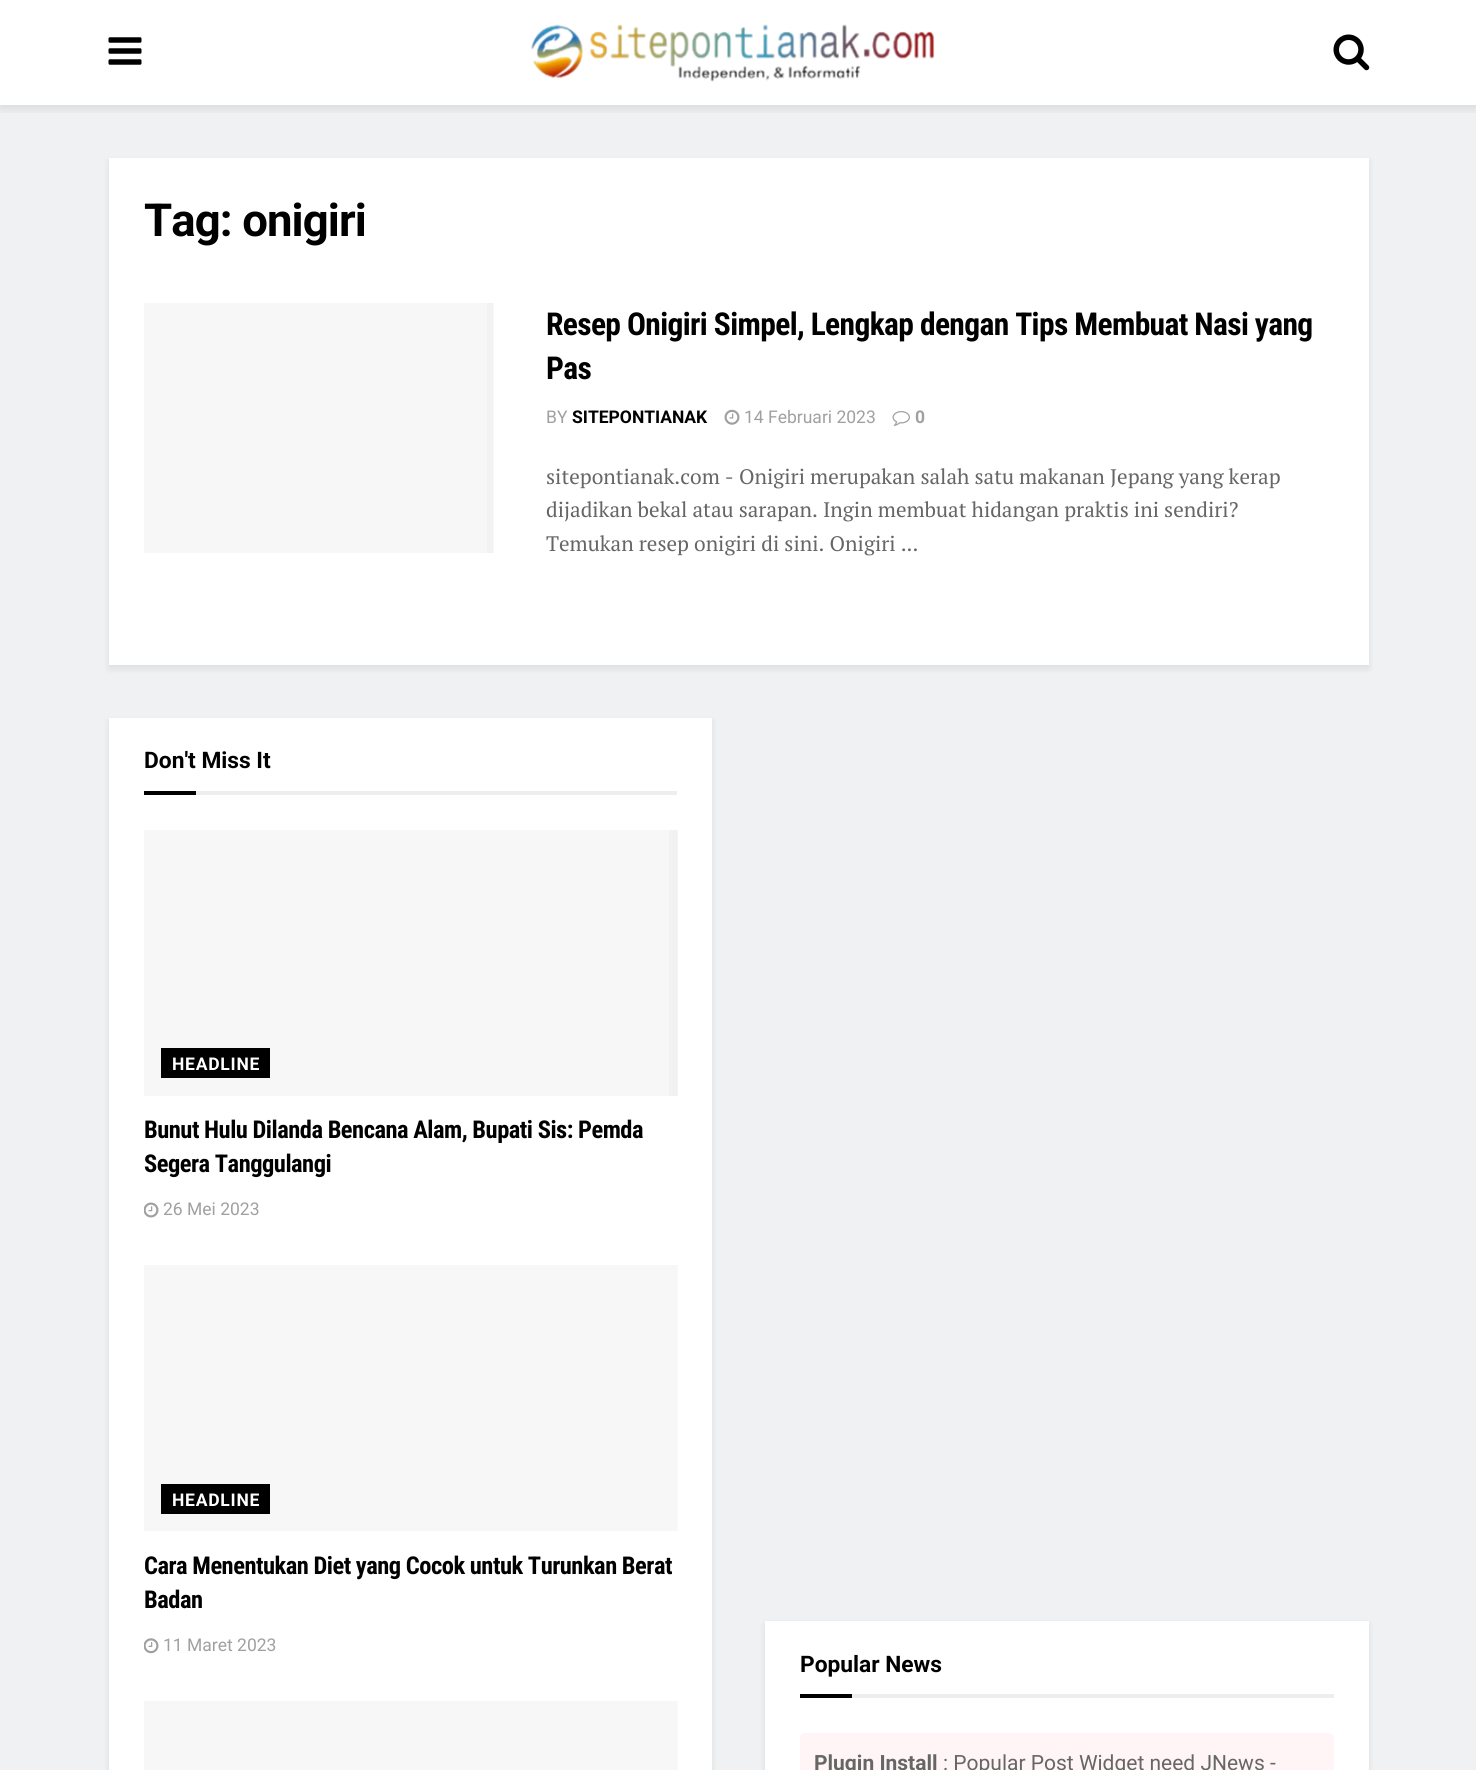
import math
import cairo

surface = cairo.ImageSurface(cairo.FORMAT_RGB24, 1476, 1770)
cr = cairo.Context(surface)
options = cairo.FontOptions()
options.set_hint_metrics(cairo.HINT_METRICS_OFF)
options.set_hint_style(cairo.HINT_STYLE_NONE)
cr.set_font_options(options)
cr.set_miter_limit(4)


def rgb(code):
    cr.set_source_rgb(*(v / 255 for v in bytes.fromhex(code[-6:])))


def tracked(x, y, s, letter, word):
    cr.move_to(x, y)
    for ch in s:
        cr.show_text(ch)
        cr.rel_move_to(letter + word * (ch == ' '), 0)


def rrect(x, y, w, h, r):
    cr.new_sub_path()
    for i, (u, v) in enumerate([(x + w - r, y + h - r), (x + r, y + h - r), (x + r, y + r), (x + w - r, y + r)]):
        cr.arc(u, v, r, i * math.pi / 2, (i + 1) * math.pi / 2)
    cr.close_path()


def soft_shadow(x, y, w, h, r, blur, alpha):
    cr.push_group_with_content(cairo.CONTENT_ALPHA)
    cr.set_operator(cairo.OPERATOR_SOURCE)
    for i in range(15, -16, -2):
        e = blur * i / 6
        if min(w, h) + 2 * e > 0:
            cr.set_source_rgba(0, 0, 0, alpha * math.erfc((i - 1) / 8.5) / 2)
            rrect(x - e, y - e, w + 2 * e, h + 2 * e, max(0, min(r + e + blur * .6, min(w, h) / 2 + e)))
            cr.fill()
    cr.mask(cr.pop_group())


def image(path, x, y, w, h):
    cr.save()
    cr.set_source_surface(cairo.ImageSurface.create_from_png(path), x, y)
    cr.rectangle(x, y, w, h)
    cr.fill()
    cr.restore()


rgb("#ffffff")
cr.paint()
rgb("#f0f1f2")
cr.rectangle(0, 105, 1476, 1665)
cr.fill()
cr.save()
cr.rectangle(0, 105, 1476, 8)
cr.clip()
rgb("#000000")
soft_shadow(0, 4, 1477, 105, 0, 5, 0.1)
cr.restore()
image("img/1.png", 108, 37, 34, 28)
image("img/2.png", 531, 24, 404, 58)
image("img/3.png", 1333, 34, 37, 37)
rgb("#000000")
soft_shadow(109, 161, 1260, 508, 0, 3.5, 0.08)
for x, y, w, h, color in [
    (109, 158, 1260, 507, "#ffffff"),
    (144, 303, 350, 250, "#f7f7f7"),
    (487, 303, 6, 250, "#f2f2f2"),
]:
    rgb(color)
    cr.rectangle(x, y, w, h)
    cr.fill()
image("img/4.png", 724, 409, 16, 16)
image("img/5.png", 892, 411, 18, 15)
rgb("#000000")
soft_shadow(109, 721, 603, 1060, 0, 3.5, 0.08)
for x, y, w, h, color in [
    (109, 718, 603, 1052, "#ffffff"),
    (196, 791, 481, 4, "#eeeeee"),
    (144, 791, 52, 4, "#000000"),
    (144, 830, 533, 266, "#f7f7f7"),
]:
    rgb(color)
    cr.rectangle(x, y, w, h)
    cr.fill()
image("img/6.png", 669, 830, 9, 266)
rgb("#000000")
cr.rectangle(161, 1048, 109, 30)
cr.fill()
image("img/7.png", 144, 1202, 15, 16)
for x, y, w, h, color in [
    (144, 1265, 533, 266, "#f7f7f7"),
    (677, 1265, 1, 266, "#f9f9f9"),
    (161, 1484, 109, 30, "#000000"),
]:
    rgb(color)
    cr.rectangle(x, y, w, h)
    cr.fill()
image("img/8.png", 144, 1638, 15, 16)
rgb("#f7f7f7")
cr.rectangle(144, 1701, 533, 69)
cr.fill()
rgb("#f9f9f9")
cr.rectangle(677, 1701, 1, 69)
cr.fill()
rgb("#000000")
soft_shadow(765, 1624, 604, 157, 0, 3.5, 0.08)
for x, y, w, h, color in [
    (765, 1621, 604, 149, "#ffffff"),
    (852, 1694, 482, 4, "#eeeeee"),
    (800, 1694, 52, 4, "#000000"),
]:
    rgb(color)
    cr.rectangle(x, y, w, h)
    cr.fill()
rgb("#fff5f6")
rrect(800, 1733, 534, 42, 5)
cr.fill()
cr.select_font_face("Roboto", cairo.FONT_SLANT_NORMAL, cairo.FONT_WEIGHT_BOLD)
cr.set_font_size(45.5)
rgb("#000000")
tracked(144, 236, "Tag: onigiri", -0.9, 0)
cr.select_font_face("Roboto Condensed", cairo.FONT_SLANT_NORMAL, cairo.FONT_WEIGHT_BOLD)
cr.set_font_size(31.5)
tracked(546, 335, "Resep Onigiri Simpel, Lengkap dengan Tips Membuat Nasi yang", -0.63, 0)
tracked(546, 379, "Pas", -0.63, 0)
cr.select_font_face("Roboto")
cr.set_font_size(17.5)
rgb("#a0a0a0")
cr.move_to(546, 423)
cr.show_text("BY")
cr.select_font_face("Roboto", cairo.FONT_SLANT_NORMAL, cairo.FONT_WEIGHT_BOLD)
rgb("#000000")
cr.move_to(572, 423)
cr.show_text("SITEPONTIANAK")
cr.select_font_face("Roboto")
rgb("#a0a0a0")
cr.move_to(744, 423)
cr.show_text("14 Februari 2023")
cr.select_font_face("Roboto", cairo.FONT_SLANT_NORMAL, cairo.FONT_WEIGHT_BOLD)
cr.move_to(915, 423)
cr.show_text("0")
cr.select_font_face("PT Serif")
cr.set_font_size(21)
rgb("#666666")
for x, y, s in [
    (546, 484, "sitepontianak.com - Onigiri merupakan salah satu makanan Jepang yang kerap"),
    (546, 517, "dijadikan bekal atau sarapan. Ingin membuat hidangan praktis ini sendiri?"),
    (546, 551, "Temukan resep onigiri di sini. Onigiri ..."),
]:
    cr.move_to(x, y)
    cr.show_text(s)
cr.select_font_face("Roboto", cairo.FONT_SLANT_NORMAL, cairo.FONT_WEIGHT_BOLD)
cr.set_font_size(22.75)
rgb("#000000")
cr.move_to(144, 768)
cr.show_text("Don't Miss It")
cr.set_font_size(17.5)
rgb("#ffffff")
tracked(172, 1070, "HEADLINE", 0.75, 0)
cr.select_font_face("Roboto Condensed", cairo.FONT_SLANT_NORMAL, cairo.FONT_WEIGHT_BOLD)
cr.set_font_size(24.5)
rgb("#000000")
tracked(144, 1138, "Bunut Hulu Dilanda Bencana Alam, Bupati Sis: Pemda", -0.5, 0)
tracked(144, 1172, "Segera Tanggulangi", -0.5, 0)
cr.select_font_face("Roboto")
cr.set_font_size(17.5)
rgb("#a0a0a0")
cr.move_to(163, 1215)
cr.show_text("26 Mei 2023")
cr.select_font_face("Roboto", cairo.FONT_SLANT_NORMAL, cairo.FONT_WEIGHT_BOLD)
rgb("#ffffff")
tracked(172, 1506, "HEADLINE", 0.75, 0)
cr.select_font_face("Roboto Condensed", cairo.FONT_SLANT_NORMAL, cairo.FONT_WEIGHT_BOLD)
cr.set_font_size(24.5)
rgb("#000000")
tracked(144, 1574, "Cara Menentukan Diet yang Cocok untuk Turunkan Berat", -0.5, 0)
tracked(144, 1608, "Badan", -0.5, 0)
cr.select_font_face("Roboto")
cr.set_font_size(17.5)
rgb("#a0a0a0")
cr.move_to(163, 1651)
cr.show_text("11 Maret 2023")
cr.select_font_face("Roboto", cairo.FONT_SLANT_NORMAL, cairo.FONT_WEIGHT_BOLD)
cr.set_font_size(22.75)
rgb("#000000")
cr.move_to(800, 1672)
cr.show_text("Popular News")
cr.set_font_size(21)
rgb("#666666")
cr.move_to(814, 1770)
cr.show_text("Plugin Install")
cr.select_font_face("Roboto")
cr.move_to(943, 1770)
cr.show_text(": Popular Post Widget need JNews -")
surface.write_to_png("page.png")
